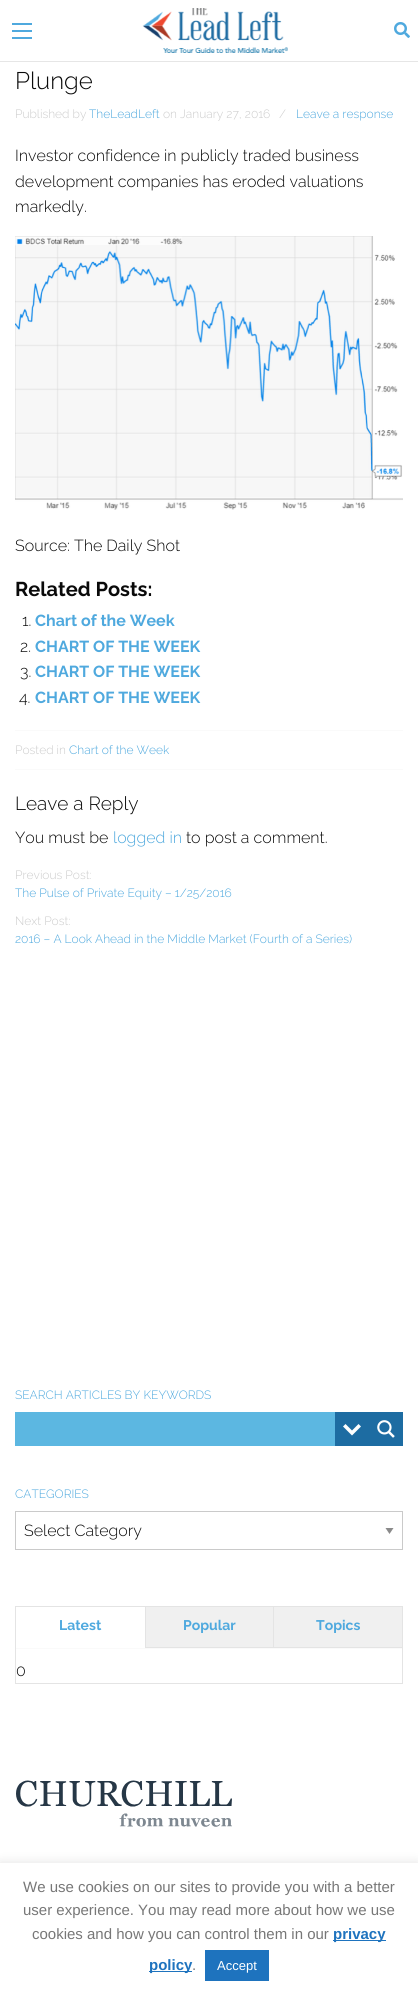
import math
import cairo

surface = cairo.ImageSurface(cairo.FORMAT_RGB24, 418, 1993)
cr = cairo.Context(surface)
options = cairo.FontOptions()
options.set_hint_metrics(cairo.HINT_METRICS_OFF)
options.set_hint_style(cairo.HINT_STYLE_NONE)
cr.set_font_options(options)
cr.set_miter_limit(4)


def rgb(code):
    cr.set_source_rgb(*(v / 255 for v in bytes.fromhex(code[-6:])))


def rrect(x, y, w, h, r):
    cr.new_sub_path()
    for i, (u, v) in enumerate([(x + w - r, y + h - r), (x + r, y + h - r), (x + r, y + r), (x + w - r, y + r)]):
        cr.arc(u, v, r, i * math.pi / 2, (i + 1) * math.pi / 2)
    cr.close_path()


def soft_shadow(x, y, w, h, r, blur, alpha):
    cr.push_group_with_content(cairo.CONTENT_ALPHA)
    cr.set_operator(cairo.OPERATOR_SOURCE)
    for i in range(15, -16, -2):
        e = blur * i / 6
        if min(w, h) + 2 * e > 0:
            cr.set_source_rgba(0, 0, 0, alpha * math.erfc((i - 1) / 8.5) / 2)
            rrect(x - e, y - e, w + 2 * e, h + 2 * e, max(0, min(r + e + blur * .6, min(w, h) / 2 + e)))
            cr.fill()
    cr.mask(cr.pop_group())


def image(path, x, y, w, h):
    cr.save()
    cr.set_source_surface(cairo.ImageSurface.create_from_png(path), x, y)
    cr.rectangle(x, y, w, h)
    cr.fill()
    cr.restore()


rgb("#ffffff")
cr.paint()
for x, y, w, h, color in [
    (0, 61, 418, 1, "#e6e6e6"),
    (12, 37, 20, 2, "#4fa9de"),
    (12, 30, 20, 2, "#4fa9de"),
    (12, 23, 20, 2, "#4fa9de"),
]:
    rgb(color)
    cr.rectangle(x, y, w, h)
    cr.fill()
image("img/1.png", 142, 8, 146, 45)
image("img/2.png", 394, 22, 16, 16)
image("img/3.png", 15, 236, 388, 274)
for x, y, w, h, color in [
    (15, 730, 388, 1, "#fafafa"),
    (15, 769, 388, 1, "#fafafa"),
    (15, 1412, 320, 34, "#5cb7e1"),
    (335, 1412, 68, 34, "#1d6ca2"),
]:
    rgb(color)
    cr.rectangle(x, y, w, h)
    cr.fill()
rgb("#ffffff")
cr.new_path()
cr.move_to(358.5, 1424)
cr.line_to(361, 1426.5)
cr.line_to(352, 1435.5)
cr.line_to(343, 1426.5)
cr.line_to(345.5, 1424)
cr.line_to(352, 1430.5)
cr.close_path()
cr.fill()
image("img/4.png", 377, 1420, 18, 18)
rgb("#8a8a8a")
cr.new_path()
cr.move_to(385.5, 1528)
cr.line_to(393.5, 1528)
cr.line_to(389.5, 1534)
cr.close_path()
cr.fill()
cr.rectangle(15.5, 1511.5, 387, 38)
rgb("#cacaca")
cr.set_line_width(1)
cr.stroke()
cr.rectangle(15.5, 1606.5, 387, 77)
rgb("#e4e4e4")
cr.stroke()
for x, y, w, h, color in [
    (16, 1648, 386, 1, "#fafafa"),
    (146, 1607, 127, 40, "#f0f0f0"),
    (145, 1647, 257, 1, "#e4e4e4"),
    (145, 1607, 1, 41, "#e4e4e4"),
    (274, 1607, 128, 40, "#f0f0f0"),
    (273, 1607, 1, 41, "#e4e4e4"),
]:
    rgb(color)
    cr.rectangle(x, y, w, h)
    cr.fill()
image("img/5.png", 16, 1780, 216, 47)
rgb("#acabab")
soft_shadow(0, 1862, 418, 130, 0, 5, 0.3)
for x, y, w, h, color in [
    (0, 1863, 418, 130, "#ffffff"),
    (333, 1940, 53, 1, "#1e73be"),
    (149, 1971, 43, 1, "#1e73be"),
    (205, 1950, 64, 31, "#1e73be"),
]:
    rgb(color)
    cr.rectangle(x, y, w, h)
    cr.fill()
cr.select_font_face("Raleway Light")
cr.set_font_size(24)
rgb("#0a0a0a")
cr.move_to(15, 89)
cr.show_text("Plunge")
cr.set_font_size(12)
rgb("#cccccc")
cr.move_to(15, 118)
cr.show_text("Published by")
rgb("#4fa9de")
cr.move_to(89, 118)
cr.show_text("TheLeadLeft")
rgb("#cccccc")
cr.move_to(163, 118)
cr.show_text("on January 27, 2016")
cr.move_to(279, 118)
cr.show_text("/")
rgb("#4fa9de")
cr.move_to(296, 118)
cr.show_text("Leave a response")
cr.set_font_size(16)
rgb("#0a0a0a")
for x, y, s in [
    (15, 161, "Investor confidence in publicly traded business"),
    (15, 187, "development companies has eroded valuations"),
    (15, 212, "markedly."),
    (15, 551, "Source: The Daily Shot"),
]:
    cr.move_to(x, y)
    cr.show_text(s)
cr.select_font_face("Raleway", cairo.FONT_SLANT_NORMAL, cairo.FONT_WEIGHT_BOLD)
cr.set_font_size(20)
cr.move_to(15, 596)
cr.show_text("Related Posts:")
cr.select_font_face("Raleway Light")
cr.set_font_size(16)
cr.move_to(22, 626)
cr.show_text("1.")
cr.select_font_face("Raleway", cairo.FONT_SLANT_NORMAL, cairo.FONT_WEIGHT_BOLD)
rgb("#4fa9de")
cr.move_to(35, 626)
cr.show_text("Chart of the Week")
cr.select_font_face("Raleway Light")
rgb("#0a0a0a")
cr.move_to(20, 652)
cr.show_text("2.")
cr.select_font_face("Raleway", cairo.FONT_SLANT_NORMAL, cairo.FONT_WEIGHT_BOLD)
rgb("#4fa9de")
cr.move_to(35, 652)
cr.show_text("CHART OF THE WEEK")
cr.select_font_face("Raleway Light")
rgb("#0a0a0a")
cr.move_to(20, 677)
cr.show_text("3.")
cr.select_font_face("Raleway", cairo.FONT_SLANT_NORMAL, cairo.FONT_WEIGHT_BOLD)
rgb("#4fa9de")
cr.move_to(35, 677)
cr.show_text("CHART OF THE WEEK")
cr.select_font_face("Raleway Light")
rgb("#0a0a0a")
cr.move_to(19, 703)
cr.show_text("4.")
cr.select_font_face("Raleway", cairo.FONT_SLANT_NORMAL, cairo.FONT_WEIGHT_BOLD)
rgb("#4fa9de")
cr.move_to(35, 703)
cr.show_text("CHART OF THE WEEK")
cr.select_font_face("Raleway Light")
cr.set_font_size(12)
rgb("#cccccc")
cr.move_to(15, 754)
cr.show_text("Posted in")
rgb("#4fa9de")
cr.move_to(69, 754)
cr.show_text("Chart of the Week")
cr.set_font_size(19)
rgb("#0a0a0a")
cr.move_to(15, 810)
cr.show_text("Leave a Reply")
cr.set_font_size(16)
cr.move_to(15, 843)
cr.show_text("You must be")
rgb("#4fa9de")
cr.move_to(113, 843)
cr.show_text("logged in")
rgb("#0a0a0a")
cr.move_to(186, 843)
cr.show_text("to post a comment.")
cr.set_font_size(12)
rgb("#cccccc")
cr.move_to(15, 879)
cr.show_text("Previous Post:")
rgb("#4fa9de")
cr.move_to(15, 897)
cr.show_text("The Pulse of Private Equity – 1/25/2016")
rgb("#cccccc")
cr.move_to(15, 925)
cr.show_text("Next Post:")
rgb("#4fa9de")
for x, y, s in [
    (15, 943, "2016 – A Look Ahead in the Middle Market (Fourth of a Series)"),
    (15, 1399, "SEARCH ARTICLES BY KEYWORDS"),
    (15, 1498, "CATEGORIES"),
]:
    cr.move_to(x, y)
    cr.show_text(s)
cr.set_font_size(16)
rgb("#0a0a0a")
cr.move_to(24, 1536)
cr.show_text("Select Category")
cr.select_font_face("Raleway", cairo.FONT_SLANT_NORMAL, cairo.FONT_WEIGHT_BOLD)
cr.set_font_size(14)
rgb("#4fa9de")
for x, y, s in [
    (59, 1630, "Latest"),
    (183, 1630, "Popular"),
    (316, 1630, "Topics"),
]:
    cr.move_to(x, y)
    cr.show_text(s)
cr.select_font_face("Raleway Light")
cr.set_font_size(16)
rgb("#0a0a0a")
cr.move_to(16, 1676)
cr.show_text("0")
cr.select_font_face("Liberation Sans")
cr.set_font_size(15)
rgb("#777777")
for x, y, s in [
    (23, 1892, "We use cookies on our sites to provide you with a better"),
    (23, 1915, "user experience. You may read more about how we use"),
    (32, 1939, "cookies and how you can control them in our"),
]:
    cr.move_to(x, y)
    cr.show_text(s)
cr.select_font_face("Liberation Sans", cairo.FONT_SLANT_NORMAL, cairo.FONT_WEIGHT_BOLD)
rgb("#1e73be")
cr.move_to(333, 1939)
cr.show_text("privacy")
cr.move_to(149, 1970)
cr.show_text("policy")
cr.select_font_face("Liberation Sans")
rgb("#777777")
cr.move_to(192, 1970)
cr.show_text(".")
cr.set_font_size(13)
rgb("#ffffff")
cr.move_to(217, 1970)
cr.show_text("Accept")
surface.write_to_png("page.png")
